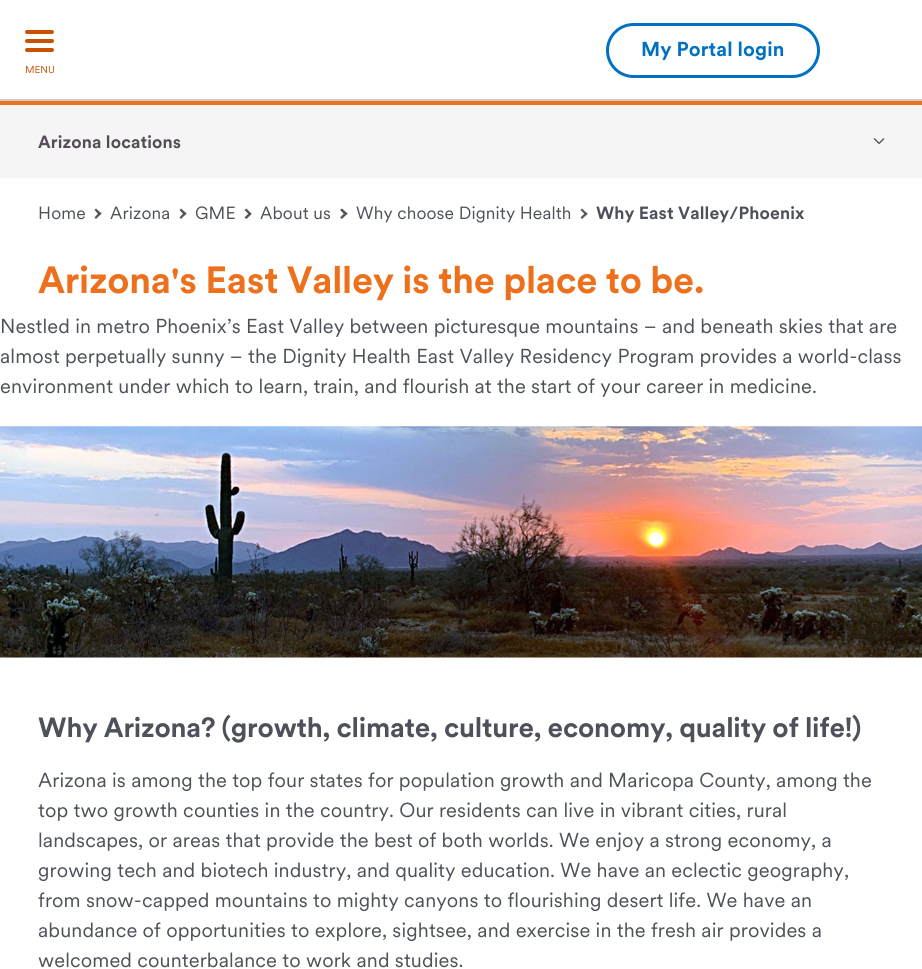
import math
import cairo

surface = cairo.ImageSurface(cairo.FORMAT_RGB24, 922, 969)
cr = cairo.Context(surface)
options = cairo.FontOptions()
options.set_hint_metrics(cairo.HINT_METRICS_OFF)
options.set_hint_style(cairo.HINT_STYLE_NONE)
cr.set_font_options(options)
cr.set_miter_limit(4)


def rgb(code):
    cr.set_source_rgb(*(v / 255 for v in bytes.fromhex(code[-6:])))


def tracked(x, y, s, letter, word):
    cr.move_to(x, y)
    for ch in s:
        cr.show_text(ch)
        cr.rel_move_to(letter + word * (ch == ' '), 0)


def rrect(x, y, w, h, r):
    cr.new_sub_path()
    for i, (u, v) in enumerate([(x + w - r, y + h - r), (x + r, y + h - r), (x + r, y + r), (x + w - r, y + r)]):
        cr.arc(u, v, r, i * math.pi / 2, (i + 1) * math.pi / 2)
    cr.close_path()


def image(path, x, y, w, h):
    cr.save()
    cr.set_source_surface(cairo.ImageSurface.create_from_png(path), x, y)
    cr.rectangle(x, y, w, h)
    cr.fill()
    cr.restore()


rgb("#ffffff")
cr.paint()
rgb("#cccccc")
cr.rectangle(0, 99, 922, 2)
cr.fill()
rrect(607.5, 24.5, 211, 52, 26)
rgb("#0071c2")
cr.set_line_width(3)
cr.stroke()
rgb("#c85200")
rrect(25, 30, 29, 4, 2)
cr.fill()
rrect(25, 39, 29, 4, 2)
cr.fill()
rrect(25, 48, 29, 4, 2)
cr.fill()
rgb("#ed711c")
cr.rectangle(0, 101, 922, 4)
cr.fill()
rgb("#f5f5f5")
cr.rectangle(0, 105, 922, 73)
cr.fill()
image("img/1.png", 873, 138, 12, 6)
rgb("#53565a")
cr.new_path()
cr.move_to(96, 208.5)
cr.line_to(101.5, 213.5)
cr.line_to(99.5, 215.5)
cr.line_to(94.5, 210)
cr.close_path()
cr.fill()
cr.new_path()
cr.move_to(99.5, 212)
cr.line_to(101.5, 213.5)
cr.line_to(96, 219)
cr.line_to(94.5, 217.5)
cr.close_path()
cr.fill()
cr.new_path()
cr.move_to(181, 208.5)
cr.line_to(186.5, 213.5)
cr.line_to(184.5, 215.5)
cr.line_to(179.5, 210)
cr.close_path()
cr.fill()
cr.new_path()
cr.move_to(184.5, 212)
cr.line_to(186.5, 213.5)
cr.line_to(181, 219)
cr.line_to(179.5, 217.5)
cr.close_path()
cr.fill()
cr.new_path()
cr.move_to(246.5, 208.5)
cr.line_to(251.5, 214)
cr.line_to(250, 215.5)
cr.line_to(244.5, 210)
cr.close_path()
cr.fill()
cr.new_path()
cr.move_to(250, 212)
cr.line_to(251.5, 214)
cr.line_to(246.5, 219)
cr.line_to(244.5, 217.5)
cr.close_path()
cr.fill()
cr.new_path()
cr.move_to(342, 208.5)
cr.line_to(347.5, 213.5)
cr.line_to(345.5, 215.5)
cr.line_to(340, 210)
cr.close_path()
cr.fill()
cr.new_path()
cr.move_to(345.5, 212)
cr.line_to(347.5, 213.5)
cr.line_to(342, 219)
cr.line_to(340, 217.5)
cr.close_path()
cr.fill()
cr.new_path()
cr.move_to(582, 208.5)
cr.line_to(587.5, 214)
cr.line_to(586, 215.5)
cr.line_to(580.5, 210)
cr.close_path()
cr.fill()
cr.new_path()
cr.move_to(586, 212)
cr.line_to(587.5, 214)
cr.line_to(582, 219)
cr.line_to(580.5, 217.5)
cr.close_path()
cr.fill()
image("img/2.png", 0, 426, 922, 232)
cr.select_font_face("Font", cairo.FONT_SLANT_NORMAL, cairo.FONT_WEIGHT_BOLD)
cr.set_font_size(20)
rgb("#0071c2")
tracked(641, 56, "My Portal login", 0.12, 0)
cr.select_font_face("Font")
cr.set_font_size(10)
rgb("#c85200")
cr.move_to(25, 73)
cr.show_text("MENU")
cr.select_font_face("Font", cairo.FONT_SLANT_NORMAL, cairo.FONT_WEIGHT_BOLD)
cr.set_font_size(17.5)
rgb("#554d56")
tracked(38, 148, "Arizona locations", 0.12, 0)
cr.select_font_face("Font")
rgb("#4d525a")
for x, y, s in [
    (38, 219, "Home"),
    (110, 219, "Arizona"),
    (195, 219, "GME"),
    (260, 219, "About us"),
    (356, 219, "Why choose Dignity Health"),
]:
    tracked(x, y, s, 0.12, 0)
cr.select_font_face("Font", cairo.FONT_SLANT_NORMAL, cairo.FONT_WEIGHT_BOLD)
tracked(596, 219, "Why East Valley/Phoenix", 0.12, 0)
cr.set_font_size(37.5)
rgb("#ed711c")
tracked(38, 293, "Arizona's East Valley is the place to be.", -0.25, 0)
cr.select_font_face("Font")
cr.set_font_size(20)
rgb("#4d525a")
for x, y, s in [
    (0, 333, "Nestled in metro Phoenix’s East Valley between picturesque mountains – and beneath skies that are"),
    (0, 363, "almost perpetually sunny – the Dignity Health East Valley Residency Program provides a world-class"),
    (0, 393, "environment under which to learn, train, and flourish at the start of your career in medicine."),
]:
    tracked(x, y, s, 0.12, 0)
cr.select_font_face("Font", cairo.FONT_SLANT_NORMAL, cairo.FONT_WEIGHT_BOLD)
cr.set_font_size(27.5)
tracked(38, 737, "Why Arizona? (growth, climate, culture, economy, quality of life!)", -0.2, 0)
cr.select_font_face("Font")
cr.set_font_size(20)
for x, y, s in [
    (38, 787, "Arizona is among the top four states for population growth and Maricopa County, among the"),
    (38, 817, "top two growth counties in the country. Our residents can live in vibrant cities, rural"),
    (38, 847, "landscapes, or areas that provide the best of both worlds. We enjoy a strong economy, a"),
    (38, 877, "growing tech and biotech industry, and quality education. We have an eclectic geography,"),
    (38, 907, "from snow-capped mountains to mighty canyons to flourishing desert life. We have an"),
    (38, 937, "abundance of opportunities to explore, sightsee, and exercise in the fresh air provides a"),
    (38, 967, "welcomed counterbalance to work and studies."),
]:
    tracked(x, y, s, 0.12, 0)
surface.write_to_png("page.png")
